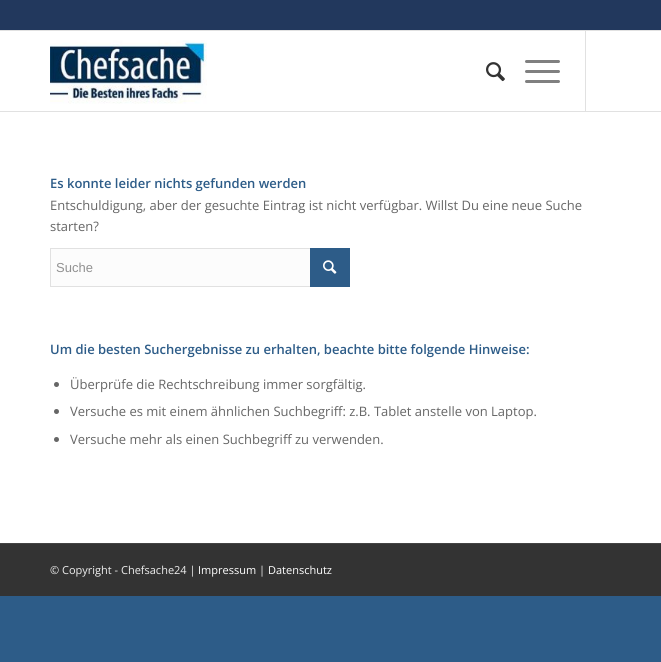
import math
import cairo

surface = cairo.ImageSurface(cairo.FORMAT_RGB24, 661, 662)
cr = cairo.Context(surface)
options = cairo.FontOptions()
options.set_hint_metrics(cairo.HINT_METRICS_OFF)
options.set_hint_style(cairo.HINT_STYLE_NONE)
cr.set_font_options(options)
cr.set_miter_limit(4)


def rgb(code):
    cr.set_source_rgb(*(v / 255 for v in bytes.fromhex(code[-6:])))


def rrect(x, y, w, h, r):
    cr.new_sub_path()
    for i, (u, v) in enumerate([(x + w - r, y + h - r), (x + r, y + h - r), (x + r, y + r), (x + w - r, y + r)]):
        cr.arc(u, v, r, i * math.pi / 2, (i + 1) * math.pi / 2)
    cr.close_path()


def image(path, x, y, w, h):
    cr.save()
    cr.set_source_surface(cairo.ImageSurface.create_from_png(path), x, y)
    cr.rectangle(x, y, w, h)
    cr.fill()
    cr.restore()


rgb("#2d5c88")
cr.paint()
for x, y, w, h, color in [
    (0, 0, 661, 30, "#22385d"),
    (0, 30, 661, 1, "#e1e1e1"),
    (0, 31, 661, 80, "#ffffff"),
    (0, 111, 661, 1, "#e1e1e1"),
]:
    rgb(color)
    cr.rectangle(x, y, w, h)
    cr.fill()
image("img/1.png", 50, 40, 157, 64)
cr.rectangle(585, 31, 1, 80)
cr.fill()
image("img/2.png", 486, 62, 19, 20)
rgb("#808080")
rrect(525, 70, 35, 3, 1.5)
cr.fill()
rrect(525, 60, 35, 3, 1.5)
cr.fill()
rrect(525, 80, 35, 3, 1.5)
cr.fill()
rgb("#ffffff")
cr.rectangle(0, 112, 661, 431)
cr.fill()
rgb("#fcfcfc")
cr.rectangle(51, 249, 259, 37)
cr.fill()
cr.rectangle(50.5, 248.5, 299, 38)
rgb("#e1e1e1")
cr.set_line_width(1)
cr.stroke()
rgb("#2d5c88")
cr.rectangle(310, 248, 40, 39)
cr.fill()
image("img/3.png", 323, 260, 14, 14)
rgb("#666666")
cr.arc(56.5, 384.5, 2.5, 0, 2 * math.pi)
cr.fill()
cr.arc(56.5, 411.5, 2.5, 0, 2 * math.pi)
cr.fill()
cr.arc(56.5, 439.5, 2.5, 0, 2 * math.pi)
cr.fill()
rgb("#333333")
cr.rectangle(0, 544, 661, 52)
cr.fill()
rgb("#444444")
cr.rectangle(0, 543, 661, 1)
cr.fill()
cr.select_font_face("Open Sans SemiBold")
cr.set_font_size(13)
rgb("#2d5c88")
cr.move_to(50, 188)
cr.show_text("Es konnte leider nichts gefunden werden")
cr.select_font_face("Open Sans")
rgb("#666666")
cr.move_to(50, 210)
cr.show_text("Entschuldigung, aber der gesuchte Eintrag ist nicht verfügbar. Willst Du eine neue Suche")
cr.move_to(50, 231)
cr.show_text("starten?")
cr.select_font_face("Liberation Sans")
rgb("#919191")
cr.move_to(56, 272)
cr.show_text("Suche")
cr.select_font_face("Open Sans SemiBold")
rgb("#2d5c88")
cr.move_to(50, 354)
cr.show_text("Um die besten Suchergebnisse zu erhalten, beachte bitte folgende Hinweise:")
cr.select_font_face("Open Sans")
rgb("#666666")
for x, y, s in [
    (70, 389, "Überprüfe die Rechtschreibung immer sorgfältig."),
    (70, 416, "Versuche es mit einem ähnlichen Suchbegriff: z.B. Tablet anstelle von Laptop."),
    (70, 444, "Versuche mehr als einen Suchbegriff zu verwenden."),
]:
    cr.move_to(x, y)
    cr.show_text(s)
cr.set_font_size(11)
rgb("#eeeeee")
cr.move_to(50, 574)
cr.show_text("© Copyright - Chefsache24 |")
rgb("#ffffff")
cr.move_to(198, 574)
cr.show_text("Impressum")
rgb("#eeeeee")
cr.move_to(259, 574)
cr.show_text("|")
rgb("#ffffff")
cr.move_to(268, 574)
cr.show_text("Datenschutz")
surface.write_to_png("page.png")
